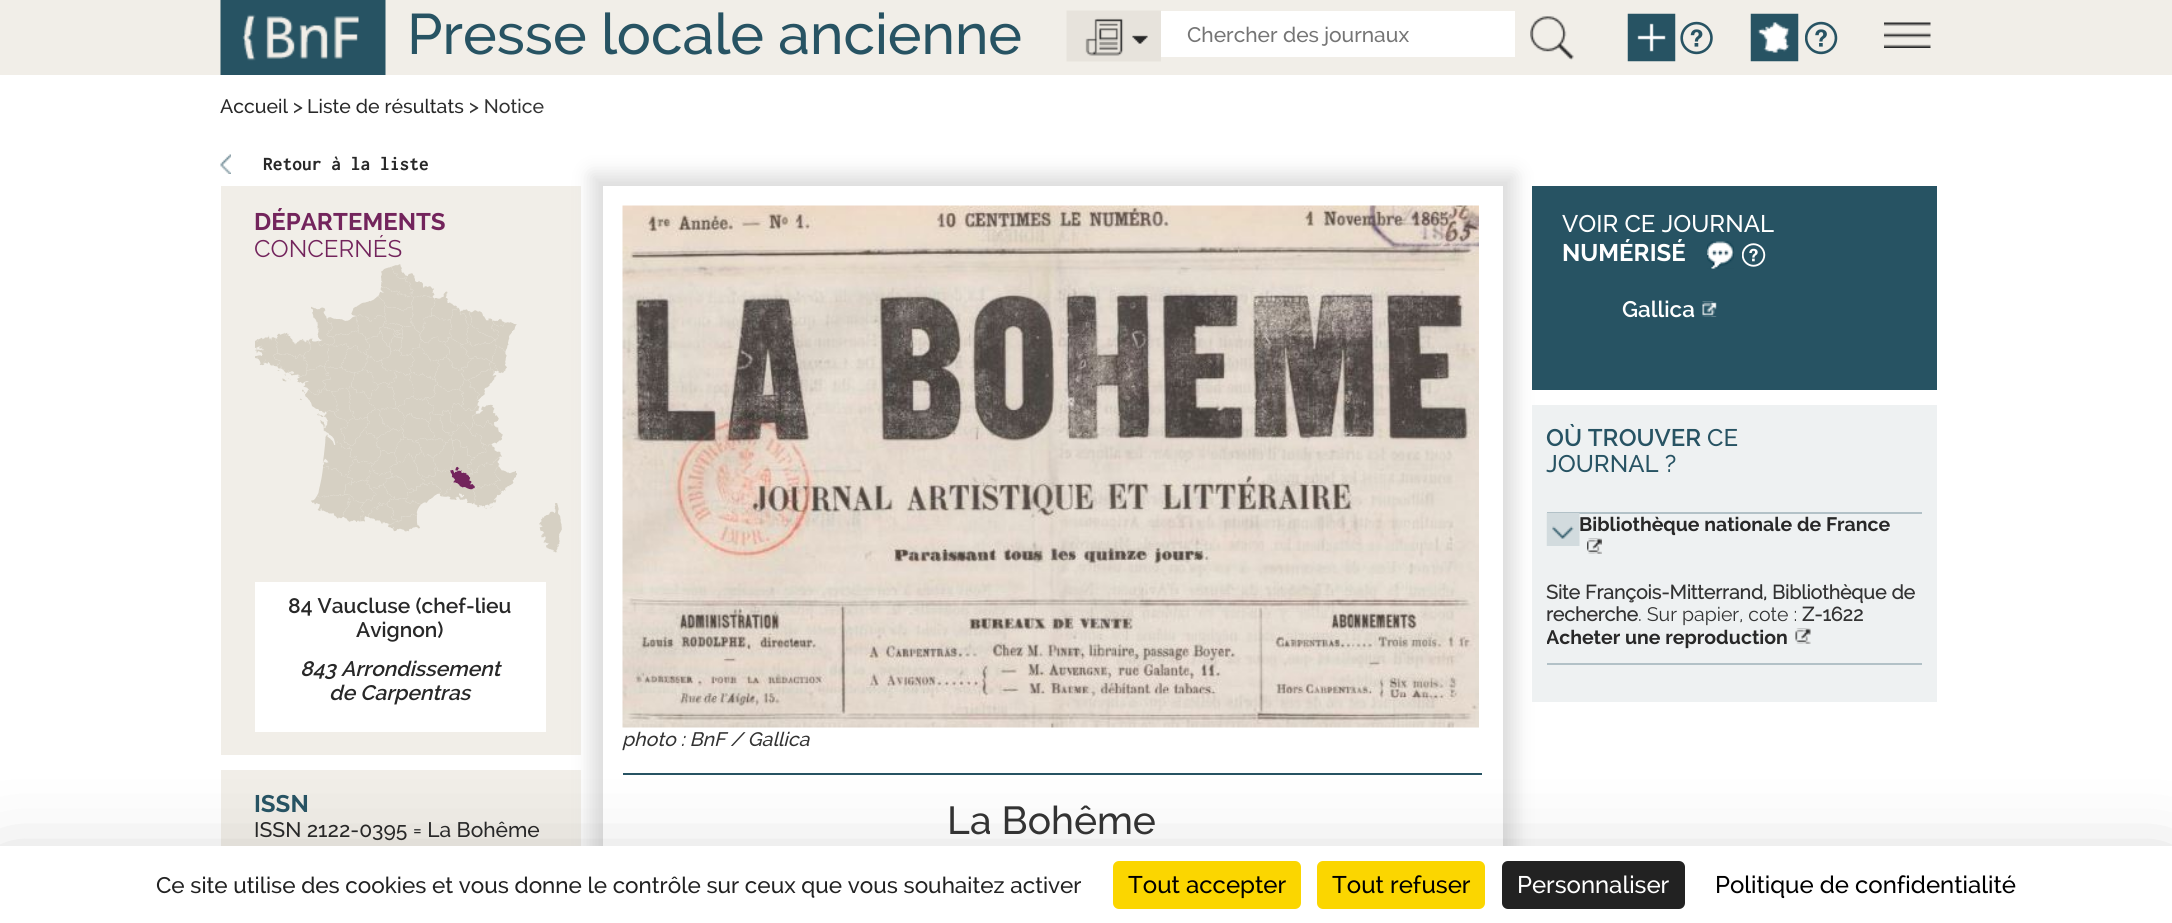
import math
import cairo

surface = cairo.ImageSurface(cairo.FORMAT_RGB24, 2172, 923)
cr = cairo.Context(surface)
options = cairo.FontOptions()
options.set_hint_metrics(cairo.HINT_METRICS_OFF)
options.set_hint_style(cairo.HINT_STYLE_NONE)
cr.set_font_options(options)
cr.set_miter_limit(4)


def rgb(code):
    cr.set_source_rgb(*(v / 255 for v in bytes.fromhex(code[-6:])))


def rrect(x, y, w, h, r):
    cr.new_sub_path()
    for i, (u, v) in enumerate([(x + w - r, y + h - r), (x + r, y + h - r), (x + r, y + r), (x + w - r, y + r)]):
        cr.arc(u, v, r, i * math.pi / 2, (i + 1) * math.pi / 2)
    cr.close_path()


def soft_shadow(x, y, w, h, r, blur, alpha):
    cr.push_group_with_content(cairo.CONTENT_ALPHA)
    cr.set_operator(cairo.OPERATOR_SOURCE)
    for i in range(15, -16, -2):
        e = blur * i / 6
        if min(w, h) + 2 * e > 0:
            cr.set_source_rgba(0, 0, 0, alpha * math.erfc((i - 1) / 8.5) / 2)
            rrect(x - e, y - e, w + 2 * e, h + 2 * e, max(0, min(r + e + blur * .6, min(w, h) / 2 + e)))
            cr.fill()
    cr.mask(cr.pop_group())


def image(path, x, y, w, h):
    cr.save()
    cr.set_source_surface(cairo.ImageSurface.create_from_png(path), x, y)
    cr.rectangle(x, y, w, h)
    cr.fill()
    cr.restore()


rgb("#ffffff")
cr.paint()
rgb("#f1eee8")
cr.rectangle(0, 0, 2172, 75)
cr.fill()
image("img/1.png", 220, 0, 166, 75)
image("img/2.png", 1066, 10, 95, 52)
rgb("#ffffff")
cr.rectangle(1161, 11, 354, 46)
cr.fill()
image("img/3.png", 1530, 16, 44, 44)
image("img/4.png", 1627, 13, 49, 49)
image("img/5.png", 1680, 21, 33, 34)
image("img/6.png", 1750, 13, 49, 49)
image("img/7.png", 1805, 21, 33, 34)
image("img/8.png", 1884, 22, 47, 26)
image("img/9.png", 220, 154, 11, 20)
rgb("#f1eee8")
cr.rectangle(221, 186, 360, 569)
cr.fill()
image("img/10.png", 255, 264, 307, 289)
rgb("#ffffff")
cr.rectangle(255, 582, 291, 150)
cr.fill()
rgb("#f1eee8")
cr.rectangle(221, 770, 360, 76)
cr.fill()
cr.save()
cr.set_fill_rule(cairo.FILL_RULE_EVEN_ODD)
cr.new_path()
cr.move_to(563, 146)
cr.line_to(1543, 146)
cr.line_to(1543, 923)
cr.line_to(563, 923)
cr.close_path()
cr.move_to(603, 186)
cr.line_to(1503, 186)
cr.line_to(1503, 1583)
cr.line_to(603, 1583)
cr.close_path()
cr.clip()
rgb("#dddddd")
soft_shadow(591, 174, 924, 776, 0, 9, 1)
cr.restore()
rgb("#275363")
cr.rectangle(1532, 186, 405, 204)
cr.fill()
image("img/11.png", 1707, 241, 27, 28)
image("img/12.png", 1742, 243, 24, 24)
image("img/13.png", 1702, 301, 15, 16)
for x, y, w, h, color in [
    (1532, 405, 405, 297, "#eef1f2"),
    (1547, 512, 375, 2, "#b2c1c7"),
    (1547, 663, 375, 2, "#b2c1c7"),
]:
    rgb(color)
    cr.rectangle(x, y, w, h)
    cr.fill()
image("img/14.png", 1546, 513, 34, 33)
image("img/15.png", 1587, 538, 15, 16)
image("img/16.png", 1795, 628, 16, 16)
image("img/17.png", 622, 205, 857, 523)
rgb("#275363")
cr.rectangle(623, 773, 859, 2)
cr.fill()
rgb("#000000")
soft_shadow(0, 876, 2172, 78, 0, 45, 0.25)
rgb("#ffffff")
cr.rectangle(0, 846, 2172, 77)
cr.fill()
rgb("#fbd600")
rrect(1113, 861, 188, 48, 6)
cr.fill()
rrect(1317, 861, 168, 48, 6)
cr.fill()
rgb("#222222")
rrect(1502, 861, 183, 48, 6)
cr.fill()
cr.select_font_face("Raleway Medium")
cr.set_font_size(57)
rgb("#275363")
cr.move_to(407, 54)
cr.show_text("Presse locale ancienne")
cr.set_font_size(21)
rgb("#757575")
cr.move_to(1187, 42)
cr.show_text("Chercher des journaux")
cr.set_font_size(19.5)
rgb("#282828")
cr.move_to(220, 113)
cr.show_text("Accueil")
rgb("#333333")
cr.move_to(293, 113)
cr.show_text(">")
rgb("#282828")
cr.move_to(307, 113)
cr.show_text("Liste de résultats")
rgb("#333333")
cr.move_to(469, 113)
cr.show_text("> Notice")
cr.select_font_face("Inconsolata", cairo.FONT_SLANT_NORMAL, cairo.FONT_WEIGHT_BOLD)
rgb("#282828")
cr.move_to(263, 170)
cr.show_text("Retour à la liste")
cr.select_font_face("Raleway", cairo.FONT_SLANT_NORMAL, cairo.FONT_WEIGHT_BOLD)
cr.set_font_size(24)
rgb("#73245c")
cr.move_to(254, 230)
cr.show_text("DÉPARTEMENTS")
cr.select_font_face("Raleway")
cr.move_to(254, 257)
cr.show_text("CONCERNÉS")
cr.select_font_face("Raleway SemiBold")
cr.set_font_size(21)
rgb("#282828")
cr.move_to(288, 613)
cr.show_text("84 Vaucluse (chef-lieu")
cr.move_to(356, 637)
cr.show_text("Avignon)")
cr.select_font_face("Raleway SemiBold", cairo.FONT_SLANT_ITALIC)
cr.move_to(300, 676)
cr.show_text("843 Arrondissement")
cr.move_to(329, 700)
cr.show_text("de Carpentras")
cr.select_font_face("Raleway", cairo.FONT_SLANT_NORMAL, cairo.FONT_WEIGHT_BOLD)
cr.set_font_size(24)
rgb("#275363")
cr.move_to(254, 812)
cr.show_text("ISSN")
cr.select_font_face("Raleway Medium")
cr.set_font_size(21)
rgb("#282828")
cr.move_to(254, 837)
cr.show_text("ISSN 2122-0395 = La Bohême")
cr.set_font_size(24)
rgb("#ffffff")
cr.move_to(1562, 232)
cr.show_text("VOIR CE JOURNAL")
cr.select_font_face("Raleway", cairo.FONT_SLANT_NORMAL, cairo.FONT_WEIGHT_BOLD)
cr.move_to(1562, 261)
cr.show_text("NUMÉRISÉ")
cr.select_font_face("Raleway SemiBold")
cr.set_font_size(22.5)
cr.move_to(1622, 317)
cr.show_text("Gallica")
cr.set_font_size(24)
rgb("#275363")
cr.move_to(1546, 446)
cr.show_text("OÙ TROUVER")
cr.select_font_face("Raleway Medium")
cr.move_to(1707, 446)
cr.show_text("CE")
cr.move_to(1546, 472)
cr.show_text("JOURNAL ?")
cr.select_font_face("Raleway", cairo.FONT_SLANT_NORMAL, cairo.FONT_WEIGHT_BOLD)
cr.set_font_size(19.5)
rgb("#282828")
cr.move_to(1579, 531)
cr.show_text("Bibliothèque nationale de France")
cr.select_font_face("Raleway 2", cairo.FONT_SLANT_NORMAL, cairo.FONT_WEIGHT_BOLD)
rgb("#333333")
cr.move_to(1546, 599)
cr.show_text("Site François-Mitterrand, Bibliothèque de")
cr.move_to(1546, 621)
cr.show_text("recherche")
cr.select_font_face("Raleway")
cr.move_to(1638, 621)
cr.show_text(". Sur papier, cote :")
cr.select_font_face("Raleway 2", cairo.FONT_SLANT_NORMAL, cairo.FONT_WEIGHT_BOLD)
cr.move_to(1802, 621)
cr.show_text("Z-1622")
cr.save()
cr.rectangle(1547, 512, 375, 168)
cr.clip()
cr.select_font_face("Raleway", cairo.FONT_SLANT_NORMAL, cairo.FONT_WEIGHT_BOLD)
rgb("#282828")
cr.move_to(1546, 644)
cr.show_text("Acheter une reproduction")
cr.restore()
cr.select_font_face("Raleway Medium", cairo.FONT_SLANT_ITALIC)
cr.move_to(622, 746)
cr.show_text("photo : BnF / Gallica")
cr.select_font_face("Raleway Medium")
cr.set_font_size(39)
cr.move_to(947, 834)
cr.show_text("La Bohême")
cr.set_font_size(22.5)
rgb("#222222")
cr.move_to(156, 893)
cr.show_text("Ce site utilise des cookies et vous donne le contrôle sur ceux que vous souhaitez activer")
cr.set_font_size(24)
rgb("#000000")
cr.move_to(1128, 893)
cr.show_text("Tout accepter")
cr.move_to(1332, 893)
cr.show_text("Tout refuser")
rgb("#ffffff")
cr.move_to(1517, 893)
cr.show_text("Personnaliser")
rgb("#000000")
cr.move_to(1715, 893)
cr.show_text("Politique de confidentialité")
surface.write_to_png("page.png")
